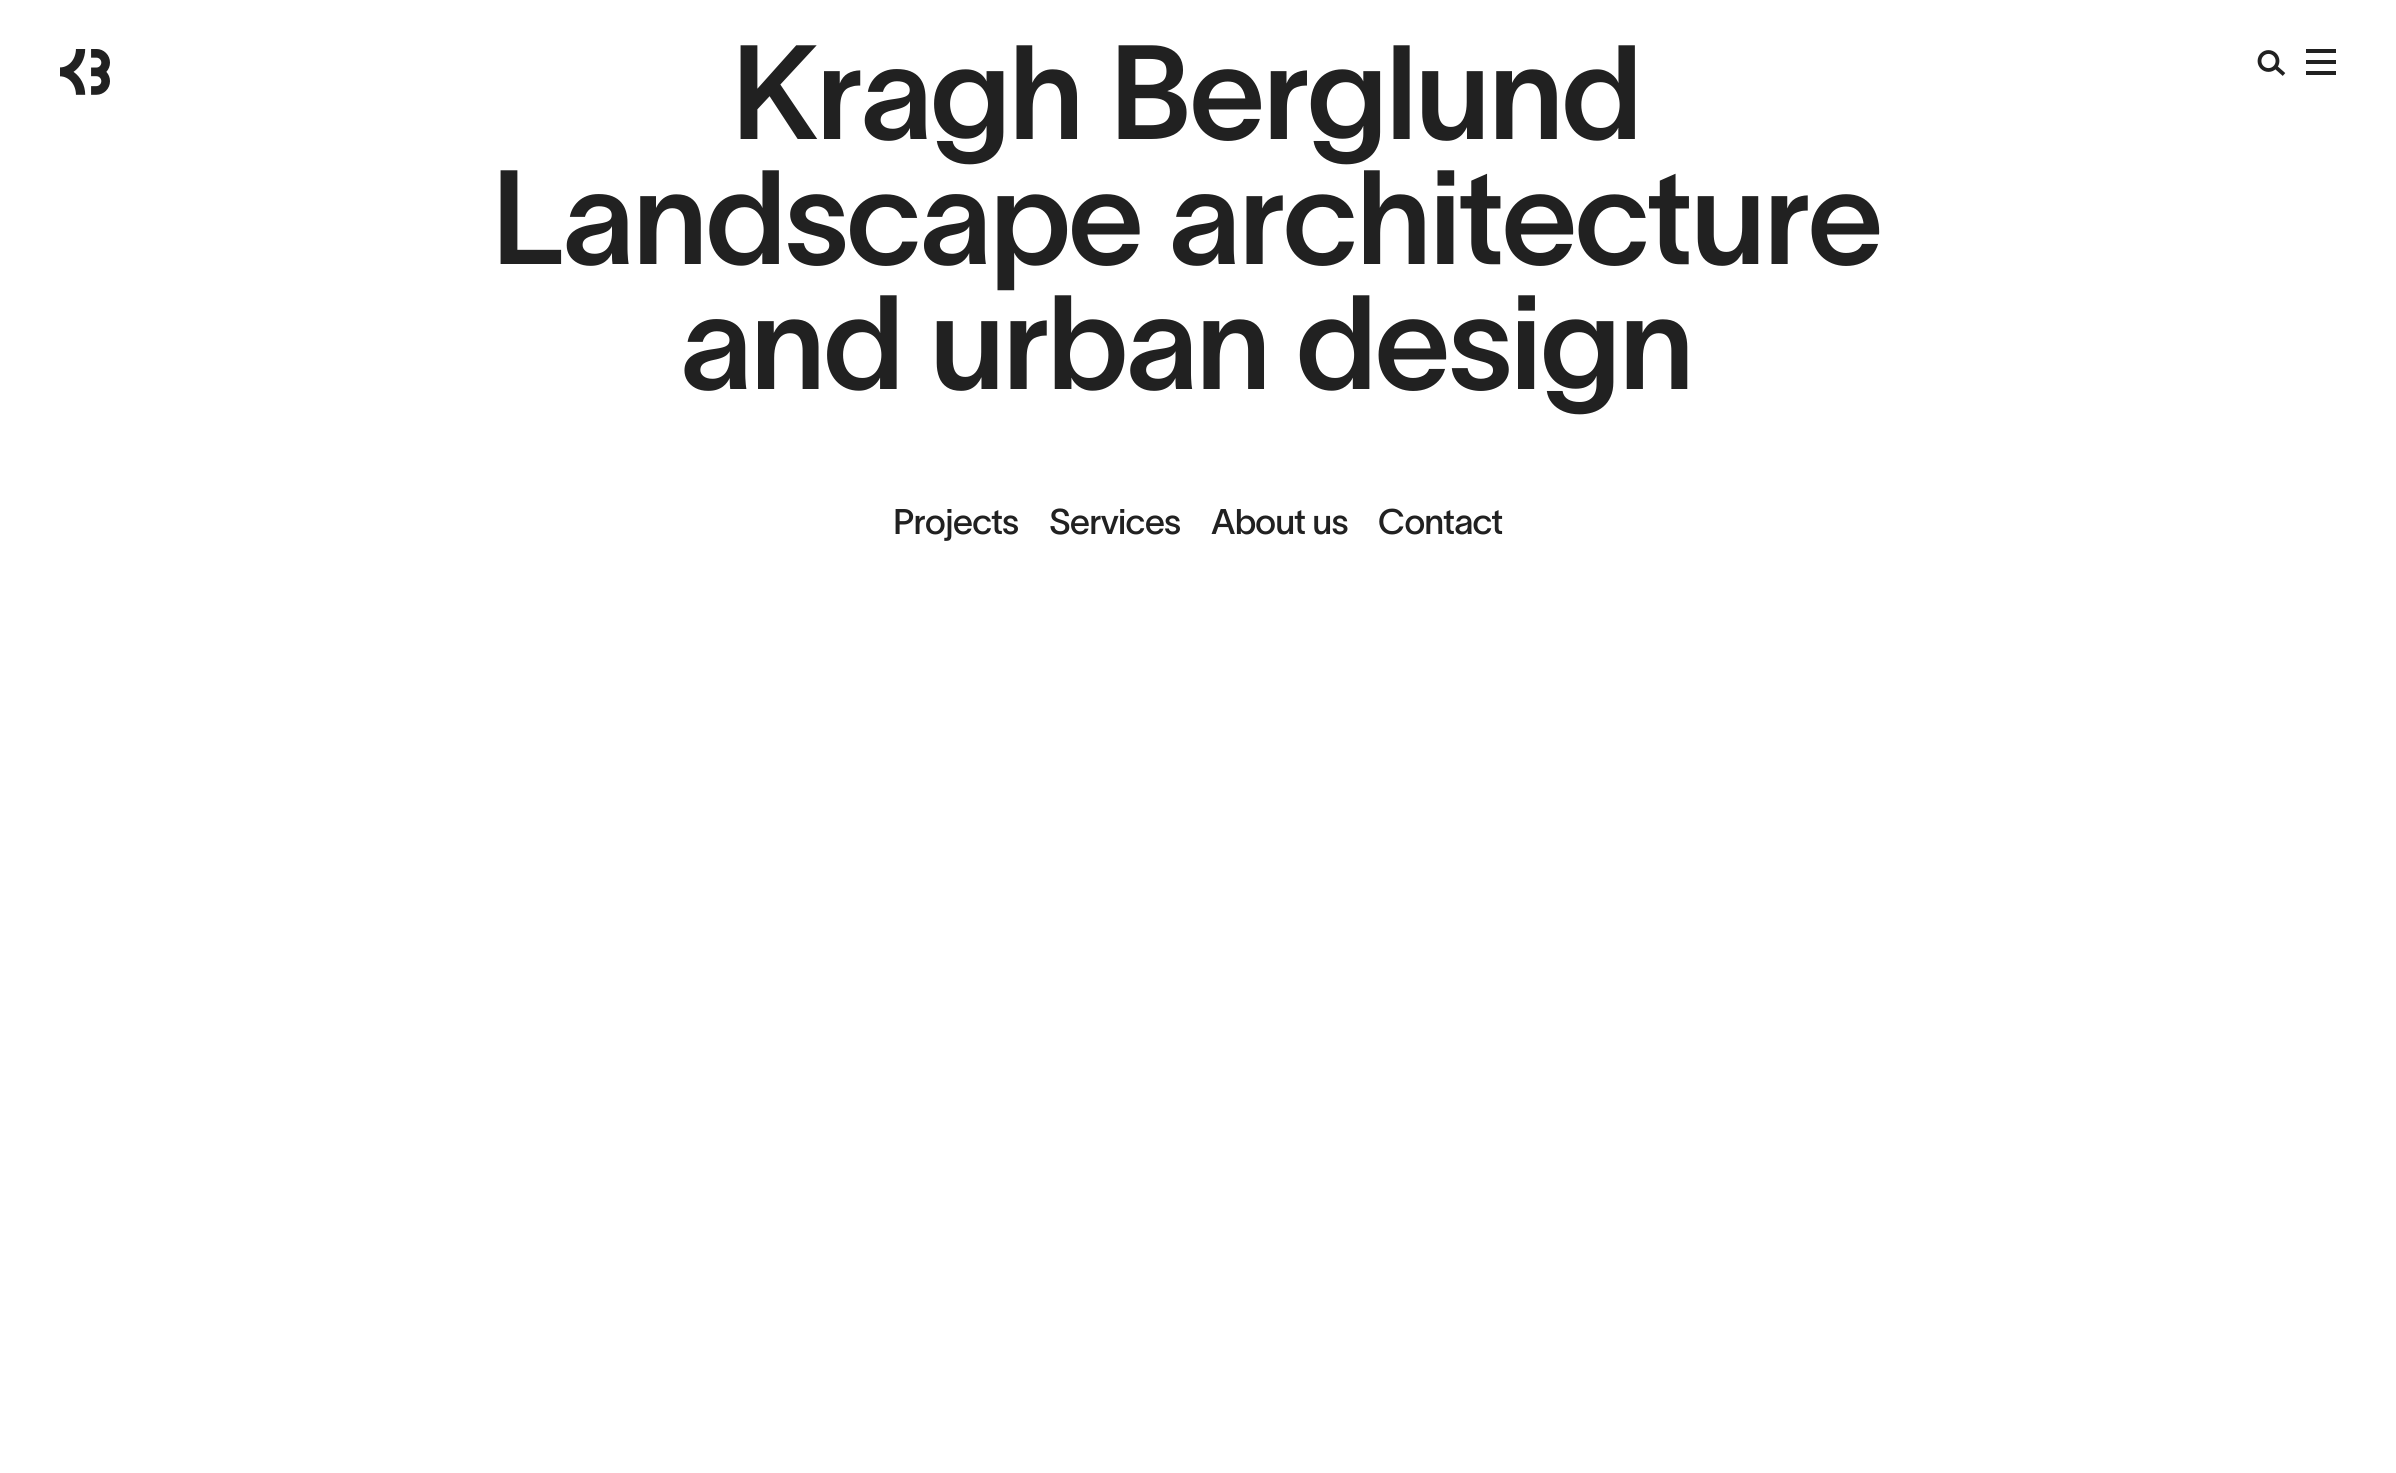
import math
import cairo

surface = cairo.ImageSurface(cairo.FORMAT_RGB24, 2396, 1473)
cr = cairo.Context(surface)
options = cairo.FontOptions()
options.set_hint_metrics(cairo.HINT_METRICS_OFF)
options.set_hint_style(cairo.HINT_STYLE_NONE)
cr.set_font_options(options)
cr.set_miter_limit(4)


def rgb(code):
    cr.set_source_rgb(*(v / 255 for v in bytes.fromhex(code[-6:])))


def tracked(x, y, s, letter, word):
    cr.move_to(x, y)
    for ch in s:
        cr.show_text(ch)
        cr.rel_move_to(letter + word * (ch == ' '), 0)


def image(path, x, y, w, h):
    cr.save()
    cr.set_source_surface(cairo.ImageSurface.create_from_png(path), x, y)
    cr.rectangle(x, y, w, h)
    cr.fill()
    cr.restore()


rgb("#ffffff")
cr.paint()
image("img/1.png", 60, 49, 50, 46)
cr.arc(2268.5, 61, 9, 0, 2 * math.pi)
rgb("#212121")
cr.set_line_width(3.8)
cr.stroke()
cr.new_path()
cr.move_to(2275, 66.5)
cr.line_to(2284, 74.5)
cr.stroke()
for x, y, w, h, color in [
    (2306, 49, 30, 4, "#212121"),
    (2306, 60, 30, 4, "#212121"),
    (2306, 71, 30, 4, "#212121"),
]:
    rgb(color)
    cr.rectangle(x, y, w, h)
    cr.fill()
cr.select_font_face("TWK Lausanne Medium")
cr.set_font_size(131.25)
for x, y, s in [
    (731, 139, "Kragh Berglund"),
    (491, 264, "Landscape architecture"),
    (680, 389, "and urban design"),
]:
    tracked(x, y, s, -2.6, 0)
cr.select_font_face("TWK Lausanne")
cr.set_font_size(35)
for x, y, s in [
    (893, 534, "Projects"),
    (1049, 534, "Services"),
    (1211, 534, "About us"),
    (1378, 534, "Contact"),
]:
    tracked(x, y, s, -0.75, 0)
surface.write_to_png("page.png")
